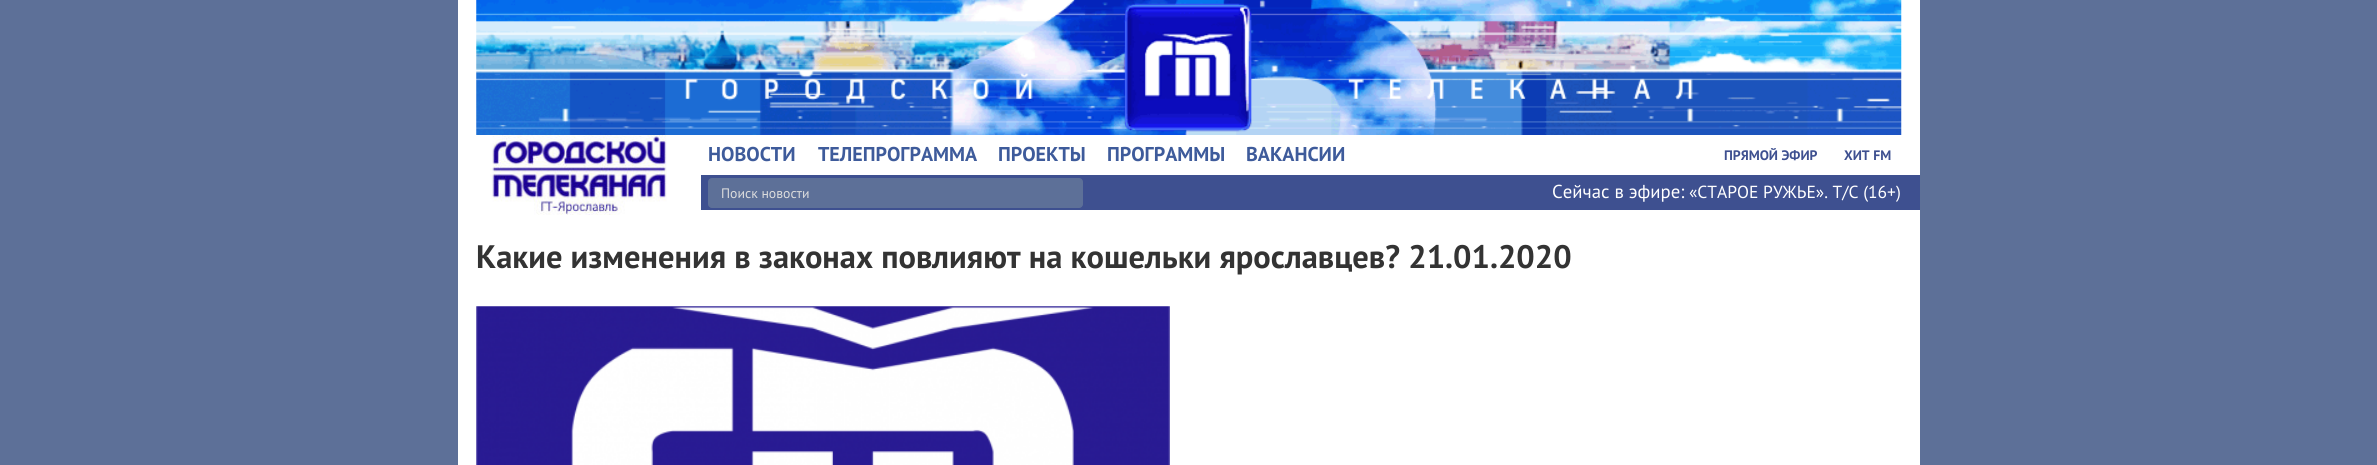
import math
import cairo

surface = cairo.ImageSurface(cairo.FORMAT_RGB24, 2377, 465)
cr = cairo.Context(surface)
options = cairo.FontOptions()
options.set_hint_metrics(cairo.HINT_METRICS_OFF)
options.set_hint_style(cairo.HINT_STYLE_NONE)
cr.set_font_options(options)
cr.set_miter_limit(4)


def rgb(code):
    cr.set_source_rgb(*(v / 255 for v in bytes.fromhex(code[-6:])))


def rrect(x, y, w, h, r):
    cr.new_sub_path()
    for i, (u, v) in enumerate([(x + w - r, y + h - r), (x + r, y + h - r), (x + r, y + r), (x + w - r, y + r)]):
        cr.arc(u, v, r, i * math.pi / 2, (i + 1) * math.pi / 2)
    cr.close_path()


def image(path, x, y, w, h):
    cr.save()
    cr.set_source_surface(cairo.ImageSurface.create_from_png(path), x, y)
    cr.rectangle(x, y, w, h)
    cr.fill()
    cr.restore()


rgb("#5d7098")
cr.paint()
rgb("#ffffff")
cr.rectangle(458, 0, 1462, 465)
cr.fill()
image("img/1.png", 476, 0, 1426, 135)
image("img/2.png", 490, 135, 177, 80)
rgb("#3e5090")
cr.rectangle(701, 175, 1219, 35)
cr.fill()
rgb("#5d7098")
rrect(708.5, 178.5, 374, 29, 3.5)
cr.fill_preserve()
cr.set_line_width(1)
cr.stroke()
image("img/3.png", 476, 306, 694, 159)
cr.select_font_face("PT Sans", cairo.FONT_SLANT_NORMAL, cairo.FONT_WEIGHT_BOLD)
cr.set_font_size(20)
rgb("#3e5b9b")
for x, y, s in [
    (708, 161, "НОВОСТИ"),
    (818, 161, "ТЕЛЕПРОГРАММА"),
    (998, 161, "ПРОЕКТЫ"),
    (1107, 161, "ПРОГРАММЫ"),
    (1246, 161, "ВАКАНСИИ"),
]:
    cr.move_to(x, y)
    cr.show_text(s)
cr.set_font_size(13.75)
rgb("#3e5090")
cr.move_to(1724, 160)
cr.show_text("ПРЯМОЙ ЭФИР")
cr.move_to(1844, 160)
cr.show_text("ХИТ FM")
cr.select_font_face("PT Sans")
rgb("#dddddd")
cr.move_to(721, 198)
cr.show_text("Поиск новости")
cr.set_font_size(18.75)
rgb("#ffffff")
cr.move_to(1552, 198)
cr.show_text("Сейчас в эфире:")
cr.set_font_size(17.5)
cr.move_to(1689, 198)
cr.show_text("«СТАРОЕ РУЖЬЕ». Т/С (16+)")
cr.select_font_face("PT Sans", cairo.FONT_SLANT_NORMAL, cairo.FONT_WEIGHT_BOLD)
cr.set_font_size(32.5)
rgb("#333333")
cr.move_to(476, 268)
cr.show_text("Какие изменения в законах повлияют на кошельки ярославцев? 21.01.2020")
surface.write_to_png("page.png")
